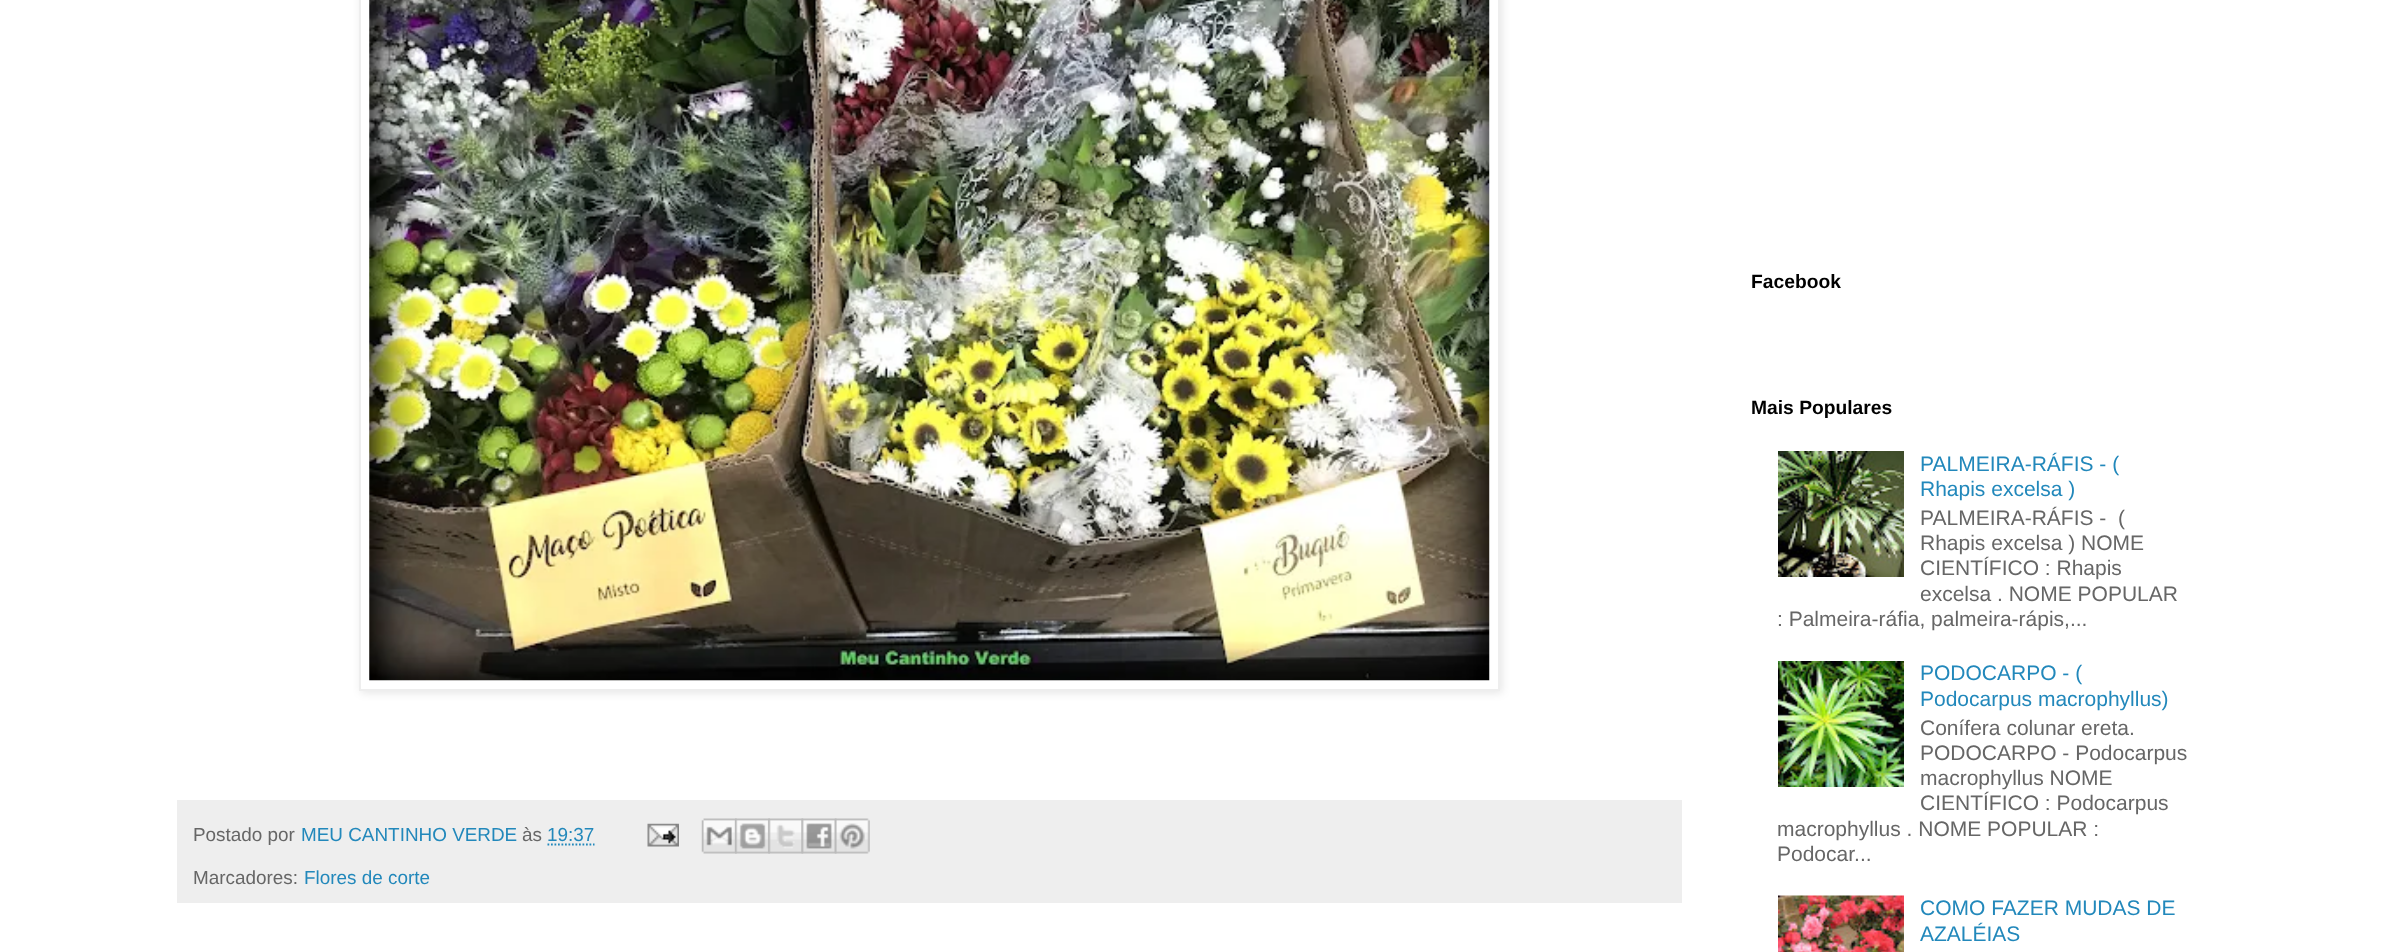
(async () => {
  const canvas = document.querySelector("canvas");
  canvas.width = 2398;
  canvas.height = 952;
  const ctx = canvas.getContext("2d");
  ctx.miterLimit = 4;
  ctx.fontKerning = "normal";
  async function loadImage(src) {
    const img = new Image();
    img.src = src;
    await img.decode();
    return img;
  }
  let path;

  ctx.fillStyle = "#ffffff";
  ctx.fillRect(0, 0, 2398, 952);
  ctx.fillStyle = "rgba(0, 0, 0, 0.1)";
  ctx.filter = "blur(4.5px)";
  ctx.beginPath();
  ctx.rect(361, -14, 1141, 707);
  ctx.fill();
  ctx.filter = "none";
  ctx.fillStyle = "#ffffff";
  ctx.beginPath();
  ctx.rect(360, -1, 1139, 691);
  ctx.fill();
  ctx.strokeStyle = "#eeeeee";
  ctx.lineWidth = 2;
  ctx.stroke();
  ctx.drawImage(await loadImage("img/1.png"), 369, 0, 1121, 681);
  ctx.fillStyle = "#eeeeee";
  ctx.fillRect(177, 800, 1505, 103);
  path = new Path2D("M547.5 844.5H594.5");
  ctx.strokeStyle = "#2288bb";
  ctx.lineWidth = 1.8;
  ctx.setLineDash([1.75, 1.75]);
  ctx.stroke(path);
  ctx.drawImage(await loadImage("img/2.png"), 647, 823, 32, 24);
  ctx.drawImage(await loadImage("img/3.png"), 701, 818, 36, 36);
  ctx.drawImage(await loadImage("img/4.png"), 735, 818, 35, 36);
  ctx.drawImage(await loadImage("img/5.png"), 768, 818, 36, 36);
  ctx.drawImage(await loadImage("img/6.png"), 801, 818, 36, 36);
  ctx.drawImage(await loadImage("img/7.png"), 834, 818, 36, 36);
  ctx.drawImage(await loadImage("img/8.png"), 1778, 451, 126, 126);
  ctx.drawImage(await loadImage("img/9.png"), 1778, 661, 126, 126);
  ctx.drawImage(await loadImage("img/10.png"), 1778, 895, 126, 57);
  ctx.font = "18.9px Liberation Sans";
  ctx.fillStyle = "#666666";
  ctx.fillText("Postado por", 193, 841);
  ctx.fillStyle = "#2288bb";
  ctx.fillText("MEU CANTINHO VERDE", 301, 841);
  ctx.fillStyle = "#666666";
  ctx.fillText("às", 522, 841);
  ctx.fillStyle = "#2288bb";
  ctx.fillText("19:37", 547, 841);
  ctx.fillStyle = "#666666";
  ctx.fillText("Marcadores:", 193, 884);
  ctx.fillStyle = "#2288bb";
  ctx.fillText("Flores de corte", 304, 884);
  ctx.font = "bold 19.25px Liberation Sans";
  ctx.fillStyle = "#000000";
  ctx.fillText("Facebook", 1751, 288);
  ctx.fillText("Mais Populares", 1751, 414);
  ctx.font = "21px Liberation Sans";
  ctx.fillStyle = "#2288bb";
  ctx.fillText("PALMEIRA-RÁFIS - (", 1920, 471);
  ctx.fillText("Rhapis excelsa )", 1920, 496);
  ctx.fillStyle = "#666666";
  for (const [text, x, y] of [
    ["PALMEIRA-RÁFIS -  (", 1920, 525],
    ["Rhapis excelsa ) NOME", 1920, 550],
    ["CIENTÍFICO : Rhapis", 1920, 575],
    ["excelsa . NOME POPULAR", 1920, 601],
    [": Palmeira-ráfia, palmeira-rápis,...", 1777, 626],
  ]) {
    ctx.fillText(text, x, y);
  }
  ctx.fillStyle = "#2288bb";
  ctx.fillText("PODOCARPO - (", 1920, 680);
  ctx.fillText("Podocarpus macrophyllus)", 1920, 706);
  ctx.fillStyle = "#666666";
  for (const [text, x, y] of [
    ["Conífera colunar ereta.", 1920, 735],
    ["PODOCARPO - Podocarpus", 1920, 760],
    ["macrophyllus NOME", 1920, 785],
    ["CIENTÍFICO : Podocarpus", 1920, 810],
    ["macrophyllus . NOME POPULAR :", 1777, 836],
    ["Podocar...", 1777, 861],
  ]) {
    ctx.fillText(text, x, y);
  }
  ctx.fillStyle = "#2288bb";
  ctx.fillText("COMO FAZER MUDAS DE", 1920, 915);
  ctx.fillText("AZALÉIAS", 1920, 941);
})();
